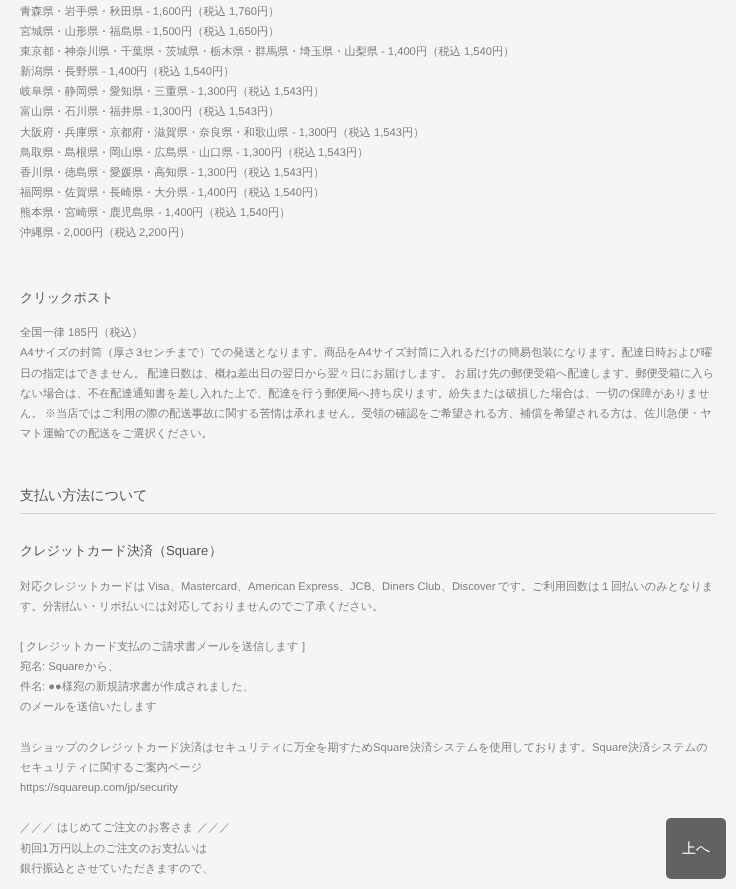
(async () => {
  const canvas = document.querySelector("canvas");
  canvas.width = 736;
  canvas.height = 889;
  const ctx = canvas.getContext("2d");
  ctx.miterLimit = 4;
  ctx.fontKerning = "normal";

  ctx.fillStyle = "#f5f5f5";
  ctx.fillRect(0, 0, 736, 889);
  ctx.fillStyle = "#d3d3d3";
  ctx.fillRect(20, 513, 696, 1);
  ctx.fillStyle = "#626262";
  ctx.beginPath();
  ctx.roundRect(666, 818, 60, 61, 5);
  ctx.fill();
  ctx.font = "500 11.2px WenQuanYi Zen Hei";
  ctx.fillStyle = "#808080";
  ctx.fillText("青森県・岩手県・秋田県", 20, 15);
  ctx.font = "11.2px Liberation Sans";
  ctx.fillText("- 1,600", 146, 15);
  ctx.font = "500 11.2px WenQuanYi Zen Hei";
  ctx.fillText("円（税込", 181, 15);
  ctx.font = "11.2px Liberation Sans";
  ctx.fillText("1,760", 229, 15);
  ctx.font = "500 11.2px WenQuanYi Zen Hei";
  ctx.fillText("円）", 257, 15);
  ctx.fillText("宮城県・山形県・福島県", 20, 35);
  ctx.font = "11.2px Liberation Sans";
  ctx.fillText("- 1,500", 146, 35);
  ctx.font = "500 11.2px WenQuanYi Zen Hei";
  ctx.fillText("円（税込", 181, 35);
  ctx.font = "11.2px Liberation Sans";
  ctx.fillText("1,650", 229, 35);
  ctx.font = "500 11.2px WenQuanYi Zen Hei";
  ctx.fillText("円）", 257, 35);
  ctx.fillText("東京都・神奈川県・千葉県・茨城県・栃木県・群馬県・埼玉県・山梨県", 20, 55);
  ctx.font = "11.2px Liberation Sans";
  ctx.fillText("- 1,400", 381, 55);
  ctx.font = "500 11.2px WenQuanYi Zen Hei";
  ctx.fillText("円（税込", 416, 55);
  ctx.font = "11.2px Liberation Sans";
  ctx.fillText("1,540", 464, 55);
  ctx.font = "500 11.2px WenQuanYi Zen Hei";
  ctx.fillText("円）", 492, 55);
  ctx.fillText("新潟県・長野県", 20, 75);
  ctx.font = "11.2px Liberation Sans";
  ctx.fillText("- 1,400", 102, 75);
  ctx.font = "500 11.2px WenQuanYi Zen Hei";
  ctx.fillText("円（税込", 136, 75);
  ctx.font = "11.2px Liberation Sans";
  ctx.fillText("1,540", 184, 75);
  ctx.font = "500 11.2px WenQuanYi Zen Hei";
  ctx.fillText("円）", 212, 75);
  ctx.fillText("岐阜県・静岡県・愛知県・三重県", 20, 95);
  ctx.font = "11.2px Liberation Sans";
  ctx.fillText("- 1,300", 191, 95);
  ctx.font = "500 11.2px WenQuanYi Zen Hei";
  ctx.fillText("円（税込", 226, 95);
  ctx.font = "11.2px Liberation Sans";
  ctx.fillText("1,543", 274, 95);
  ctx.font = "500 11.2px WenQuanYi Zen Hei";
  ctx.fillText("円）", 302, 95);
  ctx.fillText("富山県・石川県・福井県", 20, 115);
  ctx.font = "11.2px Liberation Sans";
  ctx.fillText("- 1,300", 146, 115);
  ctx.font = "500 11.2px WenQuanYi Zen Hei";
  ctx.fillText("円（税込", 181, 115);
  ctx.font = "11.2px Liberation Sans";
  ctx.fillText("1,543", 229, 115);
  ctx.font = "500 11.2px WenQuanYi Zen Hei";
  ctx.fillText("円）", 257, 115);
  ctx.fillText("大阪府・兵庫県・京都府・滋賀県・奈良県・和歌山県", 20, 136);
  ctx.font = "11.2px Liberation Sans";
  ctx.fillText("- 1,300", 292, 136);
  ctx.font = "500 11.2px WenQuanYi Zen Hei";
  ctx.fillText("円（税込", 326, 136);
  ctx.font = "11.2px Liberation Sans";
  ctx.fillText("1,543", 374, 136);
  ctx.font = "500 11.2px WenQuanYi Zen Hei";
  ctx.fillText("円）", 402, 136);
  ctx.fillText("鳥取県・島根県・岡山県・広島県・山口県", 20, 156);
  ctx.font = "11.2px Liberation Sans";
  ctx.fillText("- 1,300", 236, 156);
  ctx.font = "500 11.2px WenQuanYi Zen Hei";
  ctx.fillText("円（税込", 271, 156);
  ctx.font = "11.2px Liberation Sans";
  ctx.fillText("1,543", 318, 156);
  ctx.font = "500 11.2px WenQuanYi Zen Hei";
  ctx.fillText("円）", 346, 156);
  ctx.fillText("香川県・徳島県・愛媛県・高知県", 20, 176);
  ctx.font = "11.2px Liberation Sans";
  ctx.fillText("- 1,300", 191, 176);
  ctx.font = "500 11.2px WenQuanYi Zen Hei";
  ctx.fillText("円（税込", 226, 176);
  ctx.font = "11.2px Liberation Sans";
  ctx.fillText("1,543", 274, 176);
  ctx.font = "500 11.2px WenQuanYi Zen Hei";
  ctx.fillText("円）", 302, 176);
  ctx.fillText("福岡県・佐賀県・長崎県・大分県", 20, 196);
  ctx.font = "11.2px Liberation Sans";
  ctx.fillText("- 1,400", 191, 196);
  ctx.font = "500 11.2px WenQuanYi Zen Hei";
  ctx.fillText("円（税込", 226, 196);
  ctx.font = "11.2px Liberation Sans";
  ctx.fillText("1,540", 274, 196);
  ctx.font = "500 11.2px WenQuanYi Zen Hei";
  ctx.fillText("円）", 302, 196);
  ctx.fillText("熊本県・宮崎県・鹿児島県", 20, 216);
  ctx.font = "11.2px Liberation Sans";
  ctx.fillText("- 1,400", 158, 216);
  ctx.font = "500 11.2px WenQuanYi Zen Hei";
  ctx.fillText("円（税込", 192, 216);
  ctx.font = "11.2px Liberation Sans";
  ctx.fillText("1,540", 240, 216);
  ctx.font = "500 11.2px WenQuanYi Zen Hei";
  ctx.fillText("円）", 268, 216);
  ctx.fillText("沖縄県", 20, 236);
  ctx.font = "11.2px Liberation Sans";
  ctx.fillText("- 2,000", 57, 236);
  ctx.font = "500 11.2px WenQuanYi Zen Hei";
  ctx.fillText("円（税込", 92, 236);
  ctx.font = "11.2px Liberation Sans";
  ctx.fillText("2,200", 139, 236);
  ctx.font = "500 11.2px WenQuanYi Zen Hei";
  ctx.fillText("円）", 168, 236);
  ctx.font = "500 13.1px WenQuanYi Zen Hei";
  ctx.fillStyle = "#555555";
  ctx.fillText("クリックポスト", 20, 302);
  ctx.font = "500 11.2px WenQuanYi Zen Hei";
  ctx.fillStyle = "#808080";
  ctx.fillText("全国一律", 20, 336);
  ctx.font = "11.2px Liberation Sans";
  ctx.fillText("185", 68, 336);
  ctx.font = "500 11.2px WenQuanYi Zen Hei";
  ctx.fillText("円（税込）", 87, 336);
  ctx.font = "11.2px Liberation Sans";
  ctx.fillText("A4", 20, 356);
  ctx.font = "500 11.2px WenQuanYi Zen Hei";
  ctx.fillText("サイズの封筒（厚さ", 34, 356);
  ctx.font = "11.2px Liberation Sans";
  ctx.fillText("3", 136, 356);
  ctx.font = "500 11.2px WenQuanYi Zen Hei";
  ctx.fillText("センチまで）での発送となります。商品を", 142, 356);
  ctx.font = "11.2px Liberation Sans";
  ctx.fillText("A4", 358, 356);
  ctx.font = "500 11.2px WenQuanYi Zen Hei";
  ctx.fillText("サイズ封筒に入れるだけの簡易包装になります。配達日時および曜", 372, 356);
  ctx.wordSpacing = "-1px";
  ctx.fillText("日の指定はできません。 配達日数は、概ね差出日の翌日から翌々日にお届けします。 お届け先の郵便受箱へ配達します。郵便受箱に入ら", 20, 377);
  ctx.wordSpacing = "0px";
  ctx.fillText("ない場合は、不在配達通知書を差し入れた上で、配達を行う郵便局へ持ち戻ります。紛失または破損した場合は、一切の保障がありませ", 20, 397);
  ctx.wordSpacing = "-1px";
  ctx.fillText("ん。 ※当店ではご利用の際の配送事故に関する苦情は承れません。受領の確認をご希望される方、補償を希望される方は、佐川急便・ヤ", 20, 417);
  ctx.wordSpacing = "0px";
  ctx.fillText("マト運輸での配送をご選択ください。", 20, 437);
  ctx.font = "500 14px WenQuanYi Zen Hei";
  ctx.fillStyle = "#555555";
  ctx.fillText("支払い方法について", 20, 500);
  ctx.font = "500 13.1px WenQuanYi Zen Hei";
  ctx.fillText("クレジットカード決済（", 20, 555);
  ctx.font = "13.1px Liberation Sans";
  ctx.fillText("Square", 166, 555);
  ctx.font = "500 13.1px WenQuanYi Zen Hei";
  ctx.fillText("）", 209, 555);
  ctx.font = "500 11.2px WenQuanYi Zen Hei";
  ctx.fillStyle = "#808080";
  ctx.fillText("対応クレジットカードは", 20, 590);
  ctx.font = "11.2px Liberation Sans";
  ctx.fillText("Visa", 148, 590);
  ctx.font = "500 11.2px WenQuanYi Zen Hei";
  ctx.fillText("、", 170, 590);
  ctx.font = "11.2px Liberation Sans";
  ctx.fillText("Mastercard", 181, 590);
  ctx.font = "500 11.2px WenQuanYi Zen Hei";
  ctx.fillText("、", 237, 590);
  ctx.font = "11.2px Liberation Sans";
  ctx.fillText("American Express", 248, 590);
  ctx.font = "500 11.2px WenQuanYi Zen Hei";
  ctx.fillText("、", 339, 590);
  ctx.font = "11.2px Liberation Sans";
  ctx.fillText("JCB", 350, 590);
  ctx.font = "500 11.2px WenQuanYi Zen Hei";
  ctx.fillText("、", 371, 590);
  ctx.font = "11.2px Liberation Sans";
  ctx.fillText("Diners Club", 382, 590);
  ctx.font = "500 11.2px WenQuanYi Zen Hei";
  ctx.fillText("、", 441, 590);
  ctx.font = "11.2px Liberation Sans";
  ctx.fillText("Discover", 452, 590);
  ctx.font = "500 11.2px WenQuanYi Zen Hei";
  ctx.fillText("です。ご利用回数は１回払いのみとなりま", 498, 590);
  ctx.fillText("す。分割払い・リボ払いには対応しておりませんのでご了承ください。", 20, 610);
  ctx.font = "11.2px Liberation Sans";
  ctx.fillText("[", 20, 650);
  ctx.font = "500 11.2px WenQuanYi Zen Hei";
  ctx.fillText("クレジットカード支払のご請求書メールを送信します", 26, 650);
  ctx.font = "11.2px Liberation Sans";
  ctx.fillText("]", 302, 650);
  ctx.font = "500 11.2px WenQuanYi Zen Hei";
  ctx.fillText("宛名", 20, 670);
  ctx.font = "11.2px Liberation Sans";
  ctx.fillText(": Square", 42, 670);
  ctx.font = "500 11.2px WenQuanYi Zen Hei";
  ctx.fillText("から、", 85, 670);
  ctx.fillText("件名", 20, 690);
  ctx.font = "11.2px Liberation Sans";
  ctx.fillText(": ●●", 42, 690);
  ctx.font = "500 11.2px WenQuanYi Zen Hei";
  for (const [text, x, y] of [
    ["様宛の新規請求書が作成されました、", 62, 690],
    ["のメールを送信いたします", 20, 710],
    ["当ショップのクレジットカード決済はセキュリティに万全を期すため", 20, 751],
  ]) {
    ctx.fillText(text, x, y);
  }
  ctx.font = "11.2px Liberation Sans";
  ctx.fillText("Square", 373, 751);
  ctx.font = "500 11.2px WenQuanYi Zen Hei";
  ctx.fillText("決済システムを使用しております。", 410, 751);
  ctx.font = "11.2px Liberation Sans";
  ctx.fillText("Square", 592, 751);
  ctx.font = "500 11.2px WenQuanYi Zen Hei";
  ctx.fillText("決済システムの", 628, 751);
  ctx.fillText("セキュリティに関するご案内ページ", 20, 771);
  ctx.font = "11.2px Liberation Sans";
  ctx.fillText("https://squareup.com/jp/security", 20, 791);
  ctx.font = "500 11.2px WenQuanYi Zen Hei";
  ctx.fillText("／／／ はじめてご注文のお客さま ／／／", 20, 831);
  ctx.fillText("初回", 20, 852);
  ctx.font = "11.2px Liberation Sans";
  ctx.fillText("1", 42, 852);
  ctx.font = "500 11.2px WenQuanYi Zen Hei";
  ctx.fillText("万円以上のご注文のお支払いは", 49, 852);
  ctx.fillText("銀行振込とさせていただきますので、", 20, 872);
  ctx.font = "500 14px WenQuanYi Zen Hei";
  ctx.fillStyle = "#ffffff";
  ctx.fillText("上へ", 682, 853);
})();
